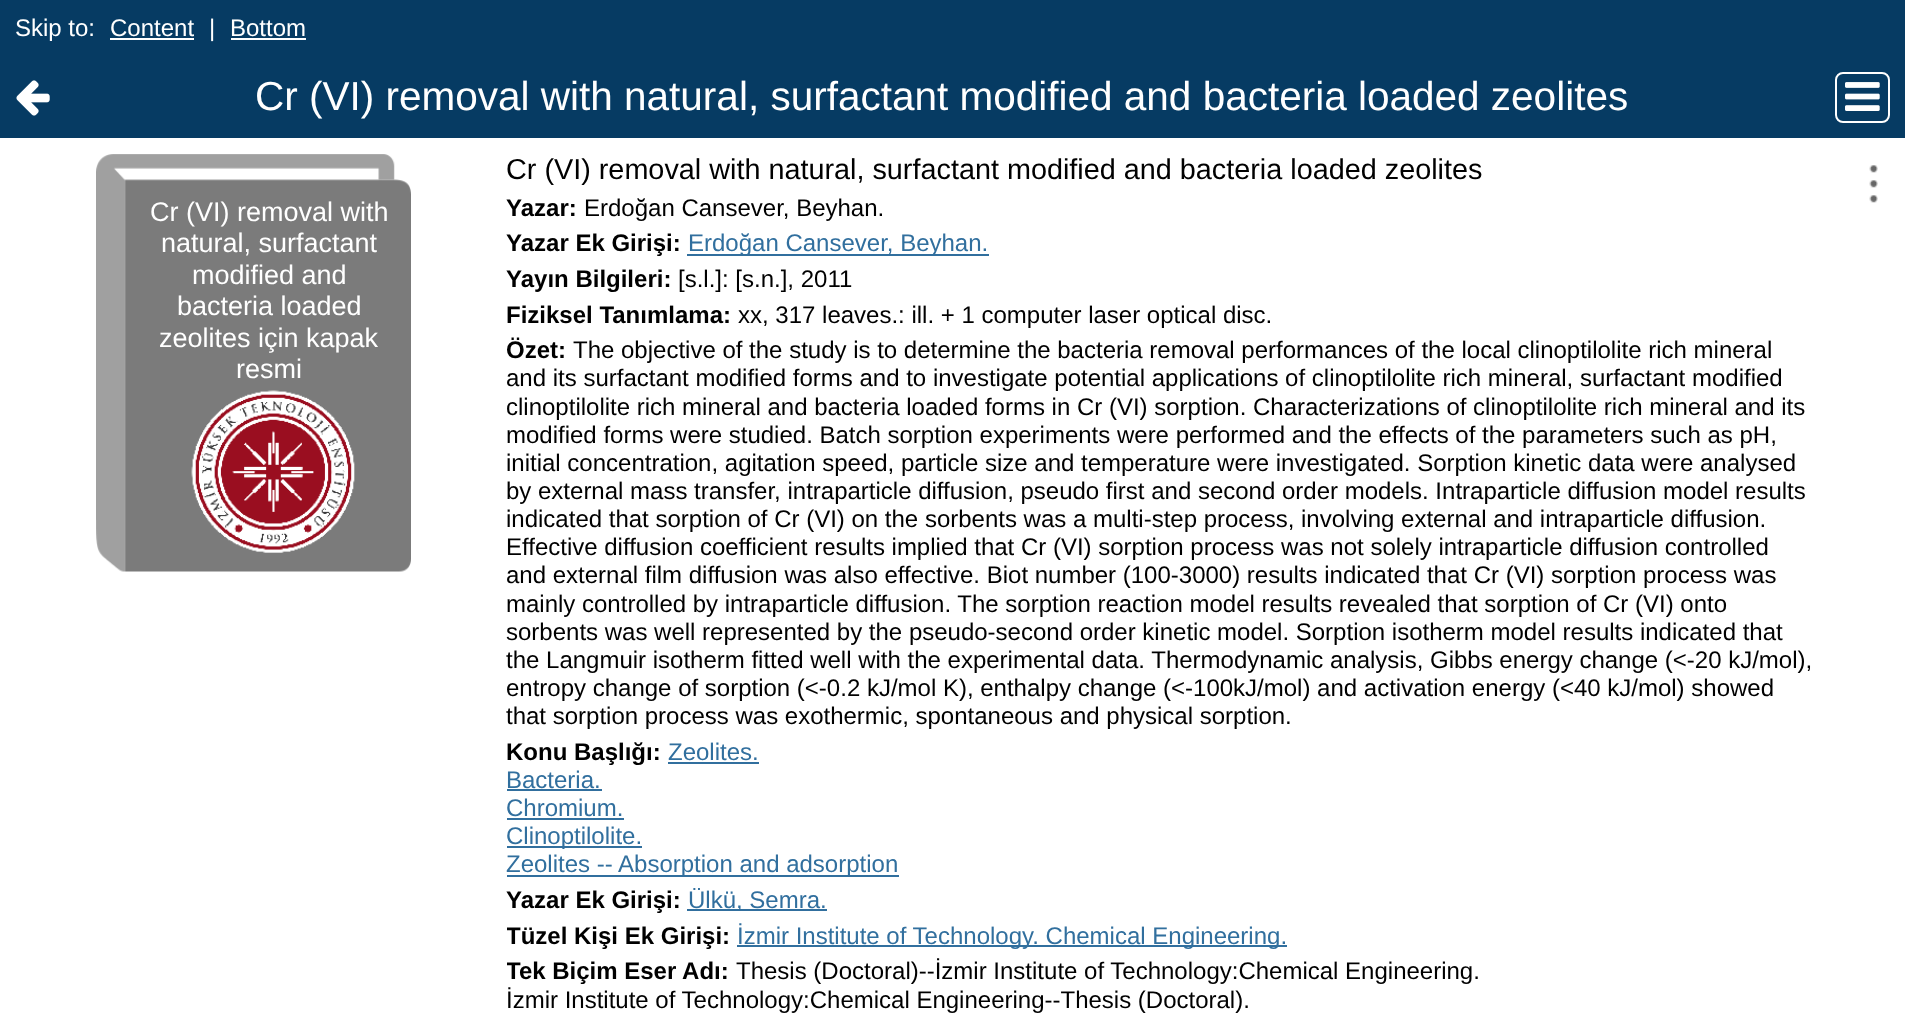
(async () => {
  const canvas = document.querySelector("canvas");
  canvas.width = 1905;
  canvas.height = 1017;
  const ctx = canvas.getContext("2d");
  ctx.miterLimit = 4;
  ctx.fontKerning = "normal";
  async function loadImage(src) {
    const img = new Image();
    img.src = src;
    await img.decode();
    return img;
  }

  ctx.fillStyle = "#063b63";
  ctx.fillRect(0, 0, 1905, 1017);
  ctx.fillStyle = "#ffffff";
  ctx.fillRect(110, 38, 84, 2);
  ctx.fillRect(231, 38, 75, 2);
  ctx.drawImage(await loadImage("img/1.png"), 16, 80, 34, 36);
  ctx.beginPath();
  ctx.roundRect(1836, 73, 53, 49, 7);
  ctx.strokeStyle = "#ffffff";
  ctx.lineWidth = 2;
  ctx.stroke();
  ctx.drawImage(await loadImage("img/2.png"), 1845, 82, 35, 29);
  ctx.fillRect(0, 138, 1905, 879);
  ctx.drawImage(await loadImage("img/3.png"), 96, 154, 315, 418);
  for (const [x, y, w, h, color] of [
    [687, 254, 302, 2, "#316f9e"],
    [668, 762, 91, 2, "#316f9e"],
    [507, 789, 95, 2, "#316f9e"],
    [507, 818, 117, 2, "#316f9e"],
    [507, 846, 135, 2, "#316f9e"],
    [507, 875, 392, 2, "#316f9e"],
    [687, 909, 140, 2, "#316f9e"],
    [737, 945, 550, 2, "#316f9e"],
  ]) {
    ctx.fillStyle = color;
    ctx.fillRect(x, y, w, h);
  }
  ctx.drawImage(await loadImage("img/4.png"), 1869, 165, 9, 38);
  ctx.font = "24px Liberation Sans";
  ctx.fillStyle = "#ffffff";
  for (const [text, x, y] of [
    ["Skip to:", 15, 36],
    ["Content", 110, 36],
    ["|", 209, 36],
    ["Bottom", 230, 36],
  ]) {
    ctx.fillText(text, x, y);
  }
  ctx.font = "40.5px Liberation Sans";
  ctx.fillText("Cr (VI) removal with natural, surfactant modified and bacteria loaded zeolites", 255, 110);
  ctx.font = "27px Liberation Sans";
  for (const [text, x, y] of [
    ["Cr (VI) removal with", 150, 221],
    ["natural, surfactant", 161, 252],
    ["modified and", 192, 284],
    ["bacteria loaded", 177, 315],
    ["zeolites için kapak", 159, 347],
    ["resmi", 236, 378],
  ]) {
    ctx.fillText(text, x, y);
  }
  ctx.font = "28.8px Liberation Sans";
  ctx.fillStyle = "#000000";
  ctx.fillText("Cr (VI) removal with natural, surfactant modified and bacteria loaded zeolites", 506, 179);
  ctx.font = "bold 24px Liberation Sans";
  ctx.fillText("Yazar:", 506, 216);
  ctx.font = "24px Liberation Sans";
  ctx.fillText("Erdoğan Cansever, Beyhan.", 584, 216);
  ctx.font = "bold 24px Liberation Sans";
  ctx.fillText("Yazar Ek Girişi:", 506, 251);
  ctx.font = "24px Liberation Sans";
  ctx.fillStyle = "#316f9e";
  ctx.fillText("Erdoğan Cansever, Beyhan.", 688, 251);
  ctx.font = "bold 24px Liberation Sans";
  ctx.fillStyle = "#000000";
  ctx.fillText("Yayın Bilgileri:", 506, 287);
  ctx.font = "24px Liberation Sans";
  ctx.fillText("[s.l.]: [s.n.], 2011", 678, 287);
  ctx.font = "bold 24px Liberation Sans";
  ctx.fillText("Fiziksel Tanımlama:", 506, 323);
  ctx.font = "24px Liberation Sans";
  ctx.fillText("xx, 317 leaves.: ill. + 1 computer laser optical disc.", 738, 323);
  ctx.font = "bold 24px Liberation Sans";
  ctx.fillText("Özet:", 506, 358);
  ctx.font = "24px Liberation Sans";
  for (const [text, x, y] of [
    ["The objective of the study is to determine the bacteria removal performances of the local clinoptilolite rich mineral", 573, 358],
    ["and its surfactant modified forms and to investigate potential applications of clinoptilolite rich mineral, surfactant modified", 506, 386],
    ["clinoptilolite rich mineral and bacteria loaded forms in Cr (VI) sorption. Characterizations of clinoptilolite rich mineral and its", 506, 415],
    ["modified forms were studied. Batch sorption experiments were performed and the effects of the parameters such as pH,", 506, 443],
    ["initial concentration, agitation speed, particle size and temperature were investigated. Sorption kinetic data were analysed", 506, 471],
    ["by external mass transfer, intraparticle diffusion, pseudo first and second order models. Intraparticle diffusion model results", 506, 499],
    ["indicated that sorption of Cr (VI) on the sorbents was a multi-step process, involving external and intraparticle diffusion.", 506, 527],
    ["Effective diffusion coefficient results implied that Cr (VI) sorption process was not solely intraparticle diffusion controlled", 506, 555],
    ["and external film diffusion was also effective. Biot number (100-3000) results indicated that Cr (VI) sorption process was", 506, 583],
    ["mainly controlled by intraparticle diffusion. The sorption reaction model results revealed that sorption of Cr (VI) onto", 506, 612],
    ["sorbents was well represented by the pseudo-second order kinetic model. Sorption isotherm model results indicated that", 506, 640],
    ["the Langmuir isotherm fitted well with the experimental data. Thermodynamic analysis, Gibbs energy change (<-20 kJ/mol),", 506, 668],
    ["entropy change of sorption (<-0.2 kJ/mol K), enthalpy change (<-100kJ/mol) and activation energy (<40 kJ/mol) showed", 506, 696],
    ["that sorption process was exothermic, spontaneous and physical sorption.", 506, 724],
  ]) {
    ctx.fillText(text, x, y);
  }
  ctx.font = "bold 24px Liberation Sans";
  ctx.fillText("Konu Başlığı:", 506, 760);
  ctx.font = "24px Liberation Sans";
  ctx.fillStyle = "#316f9e";
  for (const [text, x, y] of [
    ["Zeolites.", 668, 760],
    ["Bacteria.", 506, 788],
    ["Chromium.", 506, 816],
    ["Clinoptilolite.", 506, 844],
    ["Zeolites -- Absorption and adsorption", 506, 872],
  ]) {
    ctx.fillText(text, x, y);
  }
  ctx.font = "bold 24px Liberation Sans";
  ctx.fillStyle = "#000000";
  ctx.fillText("Yazar Ek Girişi:", 506, 908);
  ctx.font = "24px Liberation Sans";
  ctx.fillStyle = "#316f9e";
  ctx.fillText("Ülkü, Semra.", 688, 908);
  ctx.save();
  ctx.beginPath();
  ctx.rect(507, 153, 1308, 864);
  ctx.clip();
  ctx.font = "bold 24px Liberation Sans";
  ctx.fillStyle = "#000000";
  ctx.fillText("Tüzel Kişi Ek Girişi:", 506, 944);
  ctx.restore();
  ctx.fillText("İzmir Institute of Technology. Chemical Engineering.", 737, 944);
  ctx.save();
  ctx.beginPath();
  ctx.rect(507, 153, 1308, 864);
  ctx.clip();
  ctx.font = "bold 24px Liberation Sans";
  ctx.fillStyle = "#000000";
  ctx.fillText("Tek Biçim Eser Adı:", 506, 979);
  ctx.restore();
  ctx.fillStyle = "#000000";
  ctx.fillText("Thesis (Doctoral)--İzmir Institute of Technology:Chemical Engineering.", 736, 979);
  ctx.fillText("İzmir Institute of Technology:Chemical Engineering--Thesis (Doctoral).", 506, 1008);
})();
